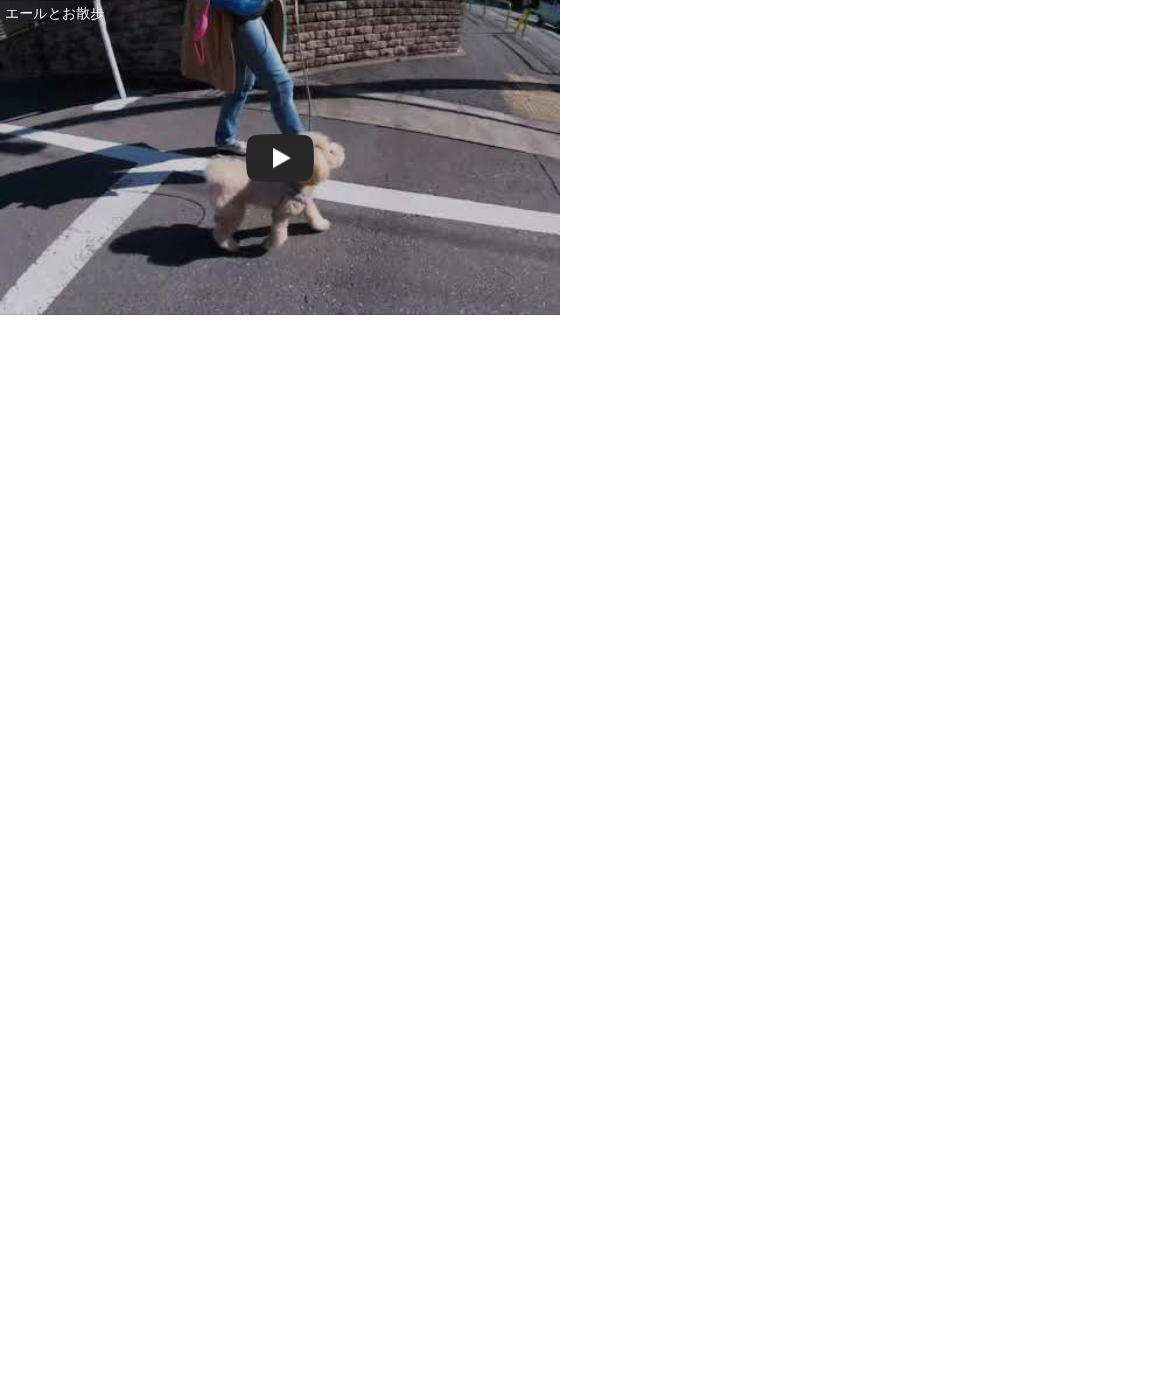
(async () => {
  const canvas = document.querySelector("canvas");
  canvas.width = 1154;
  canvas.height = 1378;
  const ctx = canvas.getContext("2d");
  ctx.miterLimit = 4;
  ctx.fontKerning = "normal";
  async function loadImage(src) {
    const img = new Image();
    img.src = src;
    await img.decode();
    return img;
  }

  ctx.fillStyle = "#ffffff";
  ctx.fillRect(0, 0, 1154, 1378);
  ctx.drawImage(await loadImage("img/1.png"), 0, 0, 560, 315);
  ctx.drawImage(await loadImage("img/2.png"), 246, 134, 68, 48);
  ctx.font = "500 14px WenQuanYi Zen Hei";
  ctx.fillText("エールとお散歩", 5, 18);
})();
